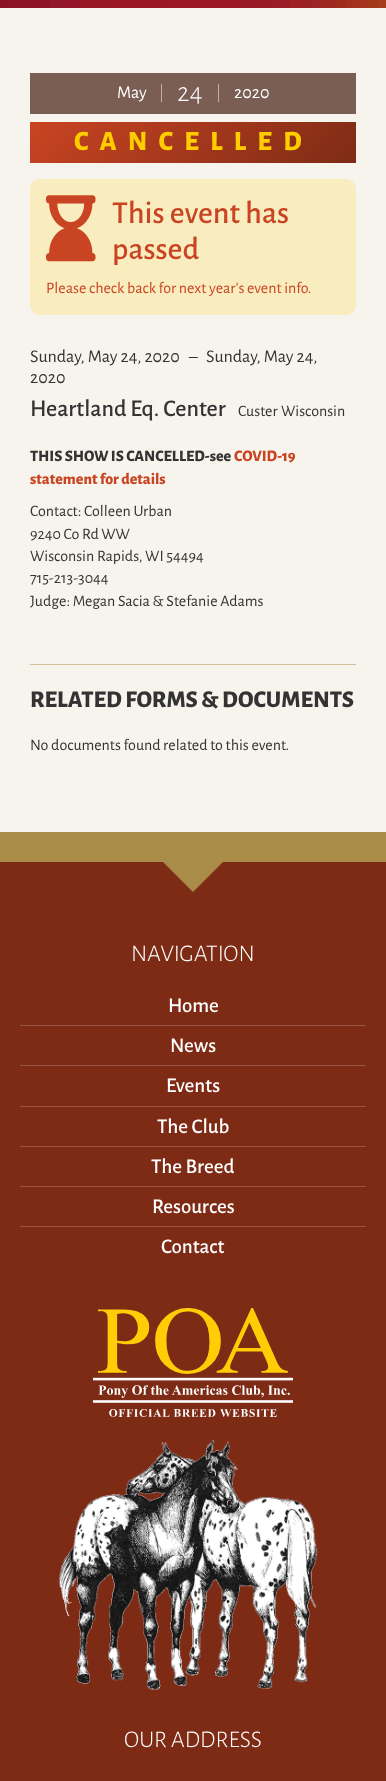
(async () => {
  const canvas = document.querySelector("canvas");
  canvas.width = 386;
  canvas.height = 1781;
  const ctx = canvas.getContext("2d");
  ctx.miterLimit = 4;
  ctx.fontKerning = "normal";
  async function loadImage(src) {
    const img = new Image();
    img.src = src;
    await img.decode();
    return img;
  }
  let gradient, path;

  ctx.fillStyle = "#ffffff";
  ctx.fillRect(0, 0, 386, 1781);
  ctx.drawImage(await loadImage("img/1.png"), 0, 0, 386, 8);
  for (const [x, y, w, h, color] of [
    [0, 8, 386, 824, "#f7f4ed"],
    [30, 73, 326, 41, "#7a5e54"],
    [161, 84, 1, 18, "#bdafaa"],
    [218, 84, 1, 18, "#bdafaa"],
  ]) {
    ctx.fillStyle = color;
    ctx.fillRect(x, y, w, h);
  }
  gradient = ctx.createLinearGradient(285, 234, 101, 51);
  gradient.addColorStop(0, "#7e2b16");
  gradient.addColorStop(1, "#c94422");
  ctx.fillStyle = gradient;
  ctx.fillRect(30, 122, 326, 41);
  ctx.fillStyle = "#f9ecbe";
  ctx.beginPath();
  ctx.roundRect(30, 179, 326, 136, 10);
  ctx.fill();
  ctx.drawImage(await loadImage("img/2.png"), 46, 195, 50, 67);
  for (const [x, y, w, h, color] of [
    [30, 664, 326, 1, "#d0c09b"],
    [0, 862, 386, 919, "#7e2b16"],
    [0, 832, 386, 30, "#a88c48"],
  ]) {
    ctx.fillStyle = color;
    ctx.fillRect(x, y, w, h);
  }
  path = new Path2D("M163 862H223L193 892Z");
  ctx.fill(path);
  for (const [x, y, w, h, color] of [
    [20, 1025, 346, 1, "#985545"],
    [20, 1065, 346, 1, "#985545"],
    [20, 1106, 346, 1, "#985545"],
    [20, 1146, 346, 1, "#985545"],
    [20, 1186, 346, 1, "#985545"],
    [20, 1226, 346, 1, "#985545"],
  ]) {
    ctx.fillStyle = color;
    ctx.fillRect(x, y, w, h);
  }
  ctx.drawImage(await loadImage("img/3.png"), 93, 1308, 200, 109);
  ctx.drawImage(await loadImage("img/4.png"), 59, 1439, 259, 251);
  ctx.font = "18px Alegreya Sans";
  ctx.fillStyle = "#ffffff";
  ctx.fillText("May", 117, 98);
  ctx.font = "300 28px Alegreya Sans";
  ctx.fillText("24", 177, 101);
  ctx.font = "18px Alegreya Sans";
  ctx.fillText("2020", 234, 98);
  ctx.letterSpacing = "11.25px";
  ctx.font = "800 28px Alegreya Sans";
  ctx.fillStyle = "#ffcc00";
  ctx.fillText("CANCELLED", 74, 150);
  ctx.letterSpacing = "0px";
  ctx.font = "500 32px Alegreya Sans";
  ctx.fillStyle = "#c94422";
  ctx.fillText("This event has", 112, 223);
  ctx.fillText("passed", 112, 259);
  ctx.font = "16px Alegreya Sans";
  ctx.fillText("Please check back for next year's event info.", 46, 293);
  ctx.font = "18px Alegreya Sans";
  ctx.fillStyle = "#333333";
  for (const [text, x, y] of [
    ["Sunday, May 24, 2020", 30, 362],
    ["–", 189, 362],
    ["Sunday, May 24,", 206, 362],
    ["2020", 30, 383],
  ]) {
    ctx.fillText(text, x, y);
  }
  ctx.font = "500 24px Alegreya Sans";
  ctx.fillText("Heartland Eq. Center", 30, 416);
  ctx.font = "16px Alegreya Sans";
  ctx.fillText("Custer", 238, 416);
  ctx.fillText("Wisconsin", 281, 416);
  ctx.font = "800 16px Alegreya Sans";
  ctx.fillText("THIS SHOW IS CANCELLED-see", 30, 461);
  ctx.fillStyle = "#c94422";
  ctx.fillText("COVID-19", 234, 461);
  ctx.fillText("statement for details", 30, 484);
  ctx.font = "16px Alegreya Sans";
  ctx.fillStyle = "#333333";
  for (const [text, x, y] of [
    ["Contact: Colleen Urban", 30, 516],
    ["9240 Co Rd WW", 30, 539],
    ["Wisconsin Rapids, WI 54494", 30, 561],
    ["715-213-3044", 30, 583],
    ["Judge: Megan Sacia & Stefanie Adams", 30, 606],
  ]) {
    ctx.fillText(text, x, y);
  }
  ctx.font = "800 24px Alegreya Sans";
  ctx.fillText("RELATED FORMS & DOCUMENTS", 30, 707);
  ctx.font = "16px Alegreya Sans";
  ctx.fillText("No documents found related to this event.", 30, 750);
  ctx.font = "300 24px Alegreya Sans";
  ctx.fillStyle = "#ffffff";
  ctx.fillText("NAVIGATION", 131, 961);
  ctx.font = "500 21px Alegreya Sans";
  for (const [text, x, y] of [
    ["Home", 168, 1012],
    ["News", 170, 1052],
    ["Events", 166, 1092],
    ["The Club", 157, 1133],
    ["The Breed", 151, 1173],
    ["Resources", 152, 1213],
    ["Contact", 161, 1253],
  ]) {
    ctx.fillText(text, x, y);
  }
  ctx.font = "300 24px Alegreya Sans";
  ctx.fillText("OUR ADDRESS", 124, 1747);
})();
